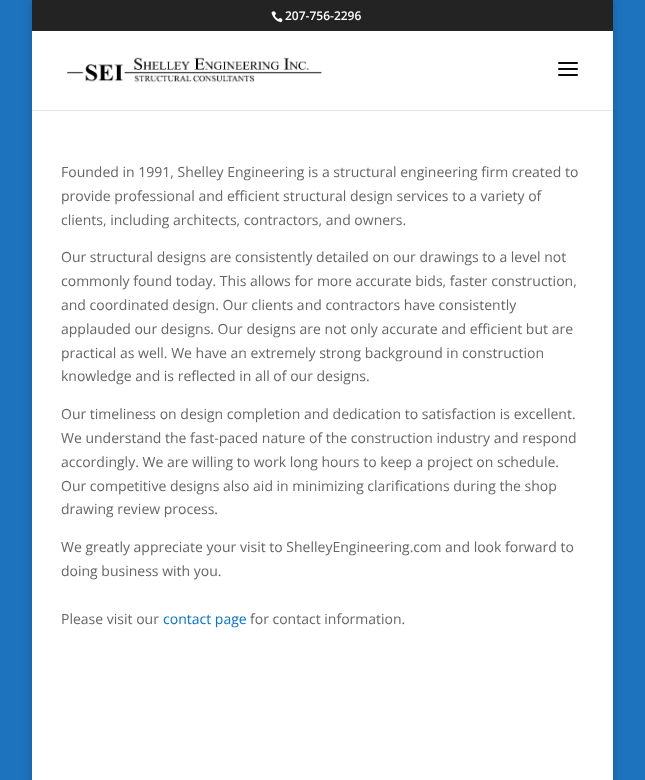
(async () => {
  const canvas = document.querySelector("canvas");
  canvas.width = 645;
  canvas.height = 780;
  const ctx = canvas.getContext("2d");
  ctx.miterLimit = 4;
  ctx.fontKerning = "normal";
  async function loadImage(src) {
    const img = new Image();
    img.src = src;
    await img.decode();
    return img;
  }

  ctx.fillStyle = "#1e73be";
  ctx.fillRect(0, 0, 645, 780);
  ctx.fillStyle = "rgba(0, 0, 0, 0.2)";
  ctx.filter = "blur(5px)";
  ctx.beginPath();
  ctx.rect(32, 0, 581, 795);
  ctx.fill();
  ctx.filter = "none";
  ctx.fillStyle = "#232323";
  ctx.fillRect(32, 0, 581, 31);
  ctx.drawImage(await loadImage("img/1.png"), 271, 11, 12, 12);
  ctx.fillStyle = "#e6e6e6";
  ctx.fillRect(32, 110, 581, 1);
  ctx.fillStyle = "#ffffff";
  ctx.fillRect(32, 31, 581, 79);
  ctx.drawImage(await loadImage("img/2.png"), 67, 57, 256, 26);
  ctx.drawImage(await loadImage("img/3.png"), 558, 62, 20, 14);
  ctx.fillRect(32, 111, 581, 669);
  ctx.font = "600 12px Open Sans";
  ctx.fillText("207-756-2296", 285, 20);
  ctx.font = "14px Open Sans";
  ctx.fillStyle = "#666666";
  for (const [text, x, y] of [
    ["Founded in 1991, Shelley Engineering is a structural engineering firm created to", 61, 177],
    ["provide professional and efficient structural design services to a variety of", 61, 201],
    ["clients, including architects, contractors, and owners.", 61, 225],
    ["Our structural designs are consistently detailed on our drawings to a level not", 61, 262],
    ["commonly found today. This allows for more accurate bids, faster construction,", 61, 286],
    ["and coordinated design. Our clients and contractors have consistently", 61, 310],
    ["applauded our designs. Our designs are not only accurate and efficient but are", 61, 334],
    ["practical as well. We have an extremely strong background in construction", 61, 358],
    ["knowledge and is reflected in all of our designs.", 61, 381],
    ["Our timeliness on design completion and dedication to satisfaction is excellent.", 61, 419],
    ["We understand the fast-paced nature of the construction industry and respond", 61, 443],
    ["accordingly. We are willing to work long hours to keep a project on schedule.", 61, 467],
    ["Our competitive designs also aid in minimizing clarifications during the shop", 61, 491],
    ["drawing review process.", 61, 514],
    ["We greatly appreciate your visit to ShelleyEngineering.com and look forward to", 61, 552],
    ["doing business with you.", 61, 576],
    ["Please visit our", 61, 624],
  ]) {
    ctx.fillText(text, x, y);
  }
  ctx.fillStyle = "#0c71c3";
  ctx.fillText("contact page", 163, 624);
  ctx.fillStyle = "#666666";
  ctx.fillText("for contact information.", 250, 624);
})();
